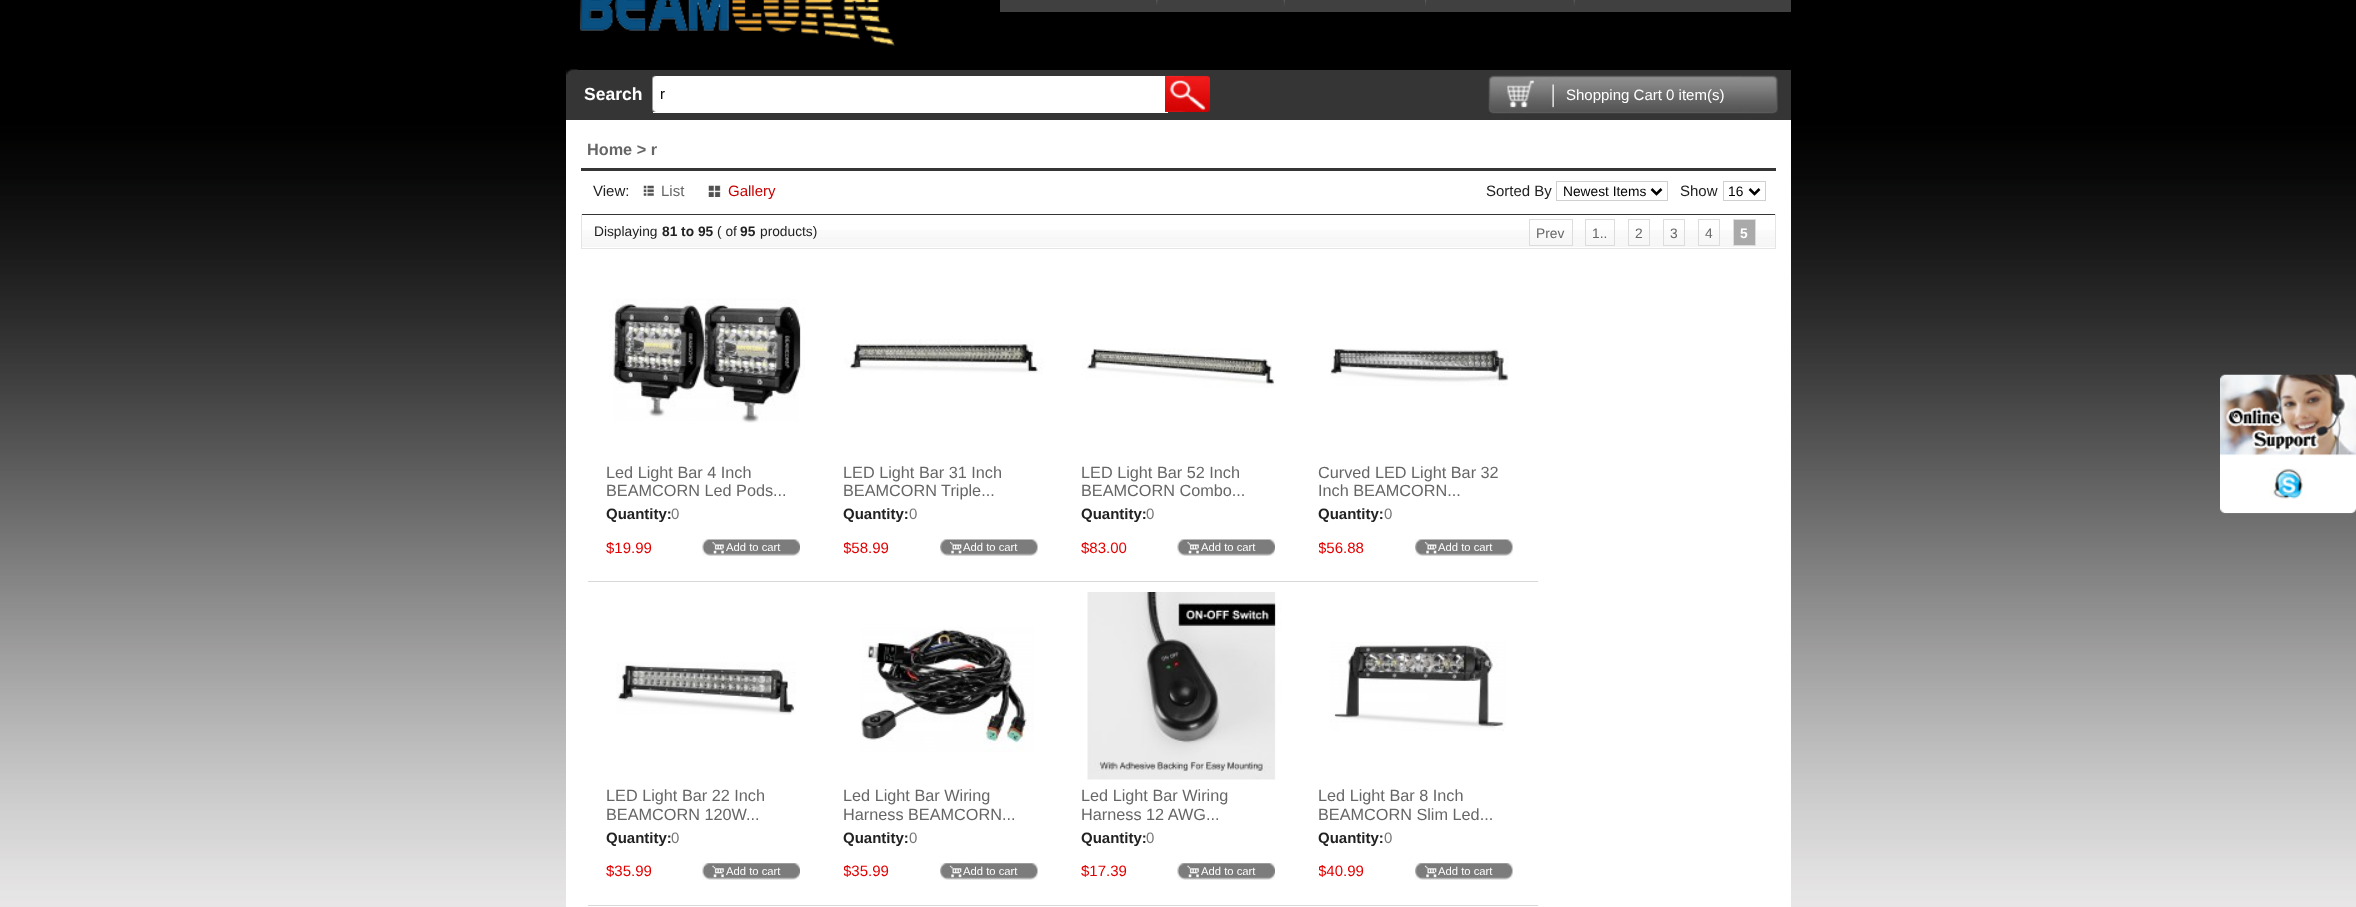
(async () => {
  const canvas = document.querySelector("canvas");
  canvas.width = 2356;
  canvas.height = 907;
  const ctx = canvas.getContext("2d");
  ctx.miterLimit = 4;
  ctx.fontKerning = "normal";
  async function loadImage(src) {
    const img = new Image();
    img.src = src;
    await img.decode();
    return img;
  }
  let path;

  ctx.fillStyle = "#ffffff";
  ctx.fillRect(0, 0, 2356, 907);
  ctx.drawImage(await loadImage("img/1.png"), 0, 0, 2356, 907);
  ctx.drawImage(await loadImage("img/2.png"), 579, 0, 316, 46);
  ctx.fillStyle = "#404040";
  ctx.fillRect(1000, 0, 791, 12);
  ctx.drawImage(await loadImage("img/3.png"), 1156, 0, 2, 5);
  ctx.drawImage(await loadImage("img/4.png"), 1283, 0, 2, 6);
  ctx.drawImage(await loadImage("img/5.png"), 1425, 0, 2, 6);
  ctx.drawImage(await loadImage("img/4.png"), 1573, 0, 2, 6);
  ctx.fillStyle = "#353535";
  ctx.fillRect(566, 70, 1225, 50);
  ctx.drawImage(await loadImage("img/6.png"), 566, 69, 12, 6);
  ctx.fillStyle = "#ffffff";
  ctx.fillRect(653, 76, 515, 37);
  ctx.drawImage(await loadImage("img/7.png"), 652, 75, 5, 37);
  ctx.drawImage(await loadImage("img/8.png"), 1165, 75, 45, 37);
  ctx.drawImage(await loadImage("img/9.png"), 1488, 75, 290, 39);
  ctx.fillRect(566, 120, 1225, 787);
  ctx.fillStyle = "#353535";
  ctx.fillRect(581, 168, 1195, 3);
  ctx.drawImage(await loadImage("img/10.png"), 643, 185, 11, 12);
  ctx.drawImage(await loadImage("img/11.png"), 708, 185, 13, 12);
  ctx.strokeStyle = "#d0d0d0";
  ctx.strokeRect(1556.5, 181.5, 111, 19);
  path = new Path2D("M1651.5 189L1656.5 194L1661.5 189");
  ctx.strokeStyle = "#000000";
  ctx.lineWidth = 2.5;
  ctx.stroke(path);
  ctx.strokeStyle = "#d0d0d0";
  ctx.lineWidth = 1;
  ctx.strokeRect(1723.5, 181.5, 42, 19);
  path = new Path2D("M1749.5 189L1754.5 194L1759.5 189");
  ctx.strokeStyle = "#000000";
  ctx.lineWidth = 2.5;
  ctx.stroke(path);
  ctx.drawImage(await loadImage("img/12.png"), 582, 230, 1193, 17);
  for (const [x, y, w, h, color] of [
    [581, 214, 1195, 1, "#353535"],
    [1775, 214, 1, 35, "#e5e5e5"],
    [581, 248, 1195, 1, "#e5e5e5"],
    [581, 214, 1, 35, "#e5e5e5"],
  ]) {
    ctx.fillStyle = color;
    ctx.fillRect(x, y, w, h);
  }
  ctx.strokeStyle = "#dddddd";
  ctx.lineWidth = 1;
  ctx.strokeRect(1529.5, 219.5, 43, 26);
  ctx.strokeRect(1585.5, 219.5, 29, 26);
  ctx.strokeRect(1628.5, 219.5, 21, 26);
  ctx.strokeRect(1663.5, 219.5, 21, 26);
  ctx.strokeRect(1698.5, 219.5, 21, 26);
  ctx.fillStyle = "#aaaaaa";
  ctx.beginPath();
  ctx.rect(1733.5, 219.5, 22, 26);
  ctx.fill();
  ctx.stroke();
  ctx.fillStyle = "#d8d8d8";
  ctx.fillRect(588, 581, 950, 1);
  ctx.drawImage(await loadImage("img/13.png"), 609, 298, 196, 125);
  ctx.drawImage(await loadImage("img/14.png"), 702, 539, 98, 17);
  ctx.drawImage(await loadImage("img/15.png"), 844, 339, 200, 35);
  ctx.drawImage(await loadImage("img/16.png"), 940, 539, 98, 17);
  ctx.drawImage(await loadImage("img/17.png"), 1081, 348, 194, 40);
  ctx.drawImage(await loadImage("img/14.png"), 1177, 539, 98, 17);
  ctx.drawImage(await loadImage("img/18.png"), 1330, 348, 179, 38);
  ctx.drawImage(await loadImage("img/19.png"), 1415, 539, 98, 17);
  ctx.fillRect(588, 905, 950, 1);
  ctx.drawImage(await loadImage("img/20.png"), 616, 662, 180, 53);
  ctx.drawImage(await loadImage("img/21.png"), 702, 863, 98, 17);
  ctx.drawImage(await loadImage("img/22.png"), 860, 627, 174, 125);
  ctx.drawImage(await loadImage("img/23.png"), 940, 863, 98, 17);
  ctx.drawImage(await loadImage("img/24.png"), 1087, 592, 194, 188);
  ctx.drawImage(await loadImage("img/21.png"), 1177, 863, 98, 17);
  ctx.drawImage(await loadImage("img/25.png"), 1330, 642, 176, 89);
  ctx.drawImage(await loadImage("img/26.png"), 1415, 863, 98, 17);
  ctx.drawImage(await loadImage("img/27.png"), 2220, 374, 136, 140);
  ctx.drawImage(await loadImage("img/28.png"), 2270, 468, 36, 31);
  ctx.font = "bold 17.5px Liberation Sans";
  ctx.fillStyle = "#ffffff";
  ctx.fillText("Search", 584, 100);
  ctx.font = "15px Liberation Sans";
  ctx.fillStyle = "#000000";
  ctx.fillText("r", 660, 99);
  ctx.fillStyle = "#ffffff";
  ctx.fillText("Shopping Cart 0 item(s)", 1566, 100);
  ctx.font = "bold 16.25px Liberation Sans";
  ctx.fillStyle = "#666666";
  ctx.fillText("Home > r", 587, 155);
  ctx.font = "15px Liberation Sans";
  ctx.fillStyle = "#222222";
  ctx.fillText("View:", 593, 196);
  ctx.fillStyle = "#666666";
  ctx.fillText("List", 661, 196);
  ctx.fillStyle = "#c60000";
  ctx.fillText("Gallery", 728, 196);
  ctx.fillStyle = "#222222";
  ctx.fillText("Sorted By", 1486, 196);
  ctx.font = "13.75px Liberation Sans";
  ctx.fillStyle = "#000000";
  ctx.fillText("Newest Items", 1563, 196);
  ctx.font = "15px Liberation Sans";
  ctx.fillStyle = "#222222";
  ctx.fillText("Show", 1680, 196);
  ctx.font = "13.75px Liberation Sans";
  ctx.fillStyle = "#000000";
  ctx.fillText("16", 1728, 196);
  ctx.fillStyle = "#222222";
  ctx.fillText("Displaying", 594, 236);
  ctx.font = "bold 13.75px Liberation Sans";
  ctx.fillText("81 to 95", 662, 236);
  ctx.font = "13.75px Liberation Sans";
  ctx.fillText("( of", 717, 236);
  ctx.font = "bold 13.75px Liberation Sans";
  ctx.fillText("95", 740, 236);
  ctx.font = "13.75px Liberation Sans";
  ctx.fillText("products)", 760, 236);
  ctx.fillStyle = "#666666";
  for (const [text, x, y] of [
    ["Prev", 1536, 238],
    ["1..", 1592, 238],
    ["2", 1635, 238],
    ["3", 1670, 238],
    ["4", 1705, 238],
  ]) {
    ctx.fillText(text, x, y);
  }
  ctx.font = "bold 13.75px Liberation Sans";
  ctx.fillStyle = "#ffffff";
  ctx.fillText("5", 1740, 238);
  ctx.font = "16.25px Liberation Sans";
  ctx.fillStyle = "#666666";
  ctx.fillText("Led Light Bar 4 Inch", 606, 478);
  ctx.fillText("BEAMCORN Led Pods...", 606, 496);
  ctx.font = "bold 15px Liberation Sans";
  ctx.fillStyle = "#222222";
  ctx.fillText("Quantity:", 606, 519);
  ctx.font = "15px Liberation Sans";
  ctx.fillStyle = "#777777";
  ctx.fillText("0", 671, 519);
  ctx.fillStyle = "#e30000";
  ctx.fillText("$19.99", 606, 553);
  ctx.font = "11.25px Liberation Sans";
  ctx.fillStyle = "#ffffff";
  ctx.fillText("Add to cart", 726, 551);
  ctx.font = "16.25px Liberation Sans";
  ctx.fillStyle = "#666666";
  ctx.fillText("LED Light Bar 31 Inch", 843, 478);
  ctx.fillText("BEAMCORN Triple...", 843, 496);
  ctx.font = "bold 15px Liberation Sans";
  ctx.fillStyle = "#222222";
  ctx.fillText("Quantity:", 843, 519);
  ctx.font = "15px Liberation Sans";
  ctx.fillStyle = "#777777";
  ctx.fillText("0", 909, 519);
  ctx.save();
  ctx.beginPath();
  ctx.rect(844, 528, 200, 35);
  ctx.clip();
  ctx.fillStyle = "#e30000";
  ctx.fillText("$58.99", 843, 553);
  ctx.restore();
  ctx.font = "11.25px Liberation Sans";
  ctx.fillStyle = "#ffffff";
  ctx.fillText("Add to cart", 963, 551);
  ctx.font = "16.25px Liberation Sans";
  ctx.fillStyle = "#666666";
  ctx.fillText("LED Light Bar 52 Inch", 1081, 478);
  ctx.fillText("BEAMCORN Combo...", 1081, 496);
  ctx.font = "bold 15px Liberation Sans";
  ctx.fillStyle = "#222222";
  ctx.fillText("Quantity:", 1081, 519);
  ctx.font = "15px Liberation Sans";
  ctx.fillStyle = "#777777";
  ctx.fillText("0", 1146, 519);
  ctx.fillStyle = "#e30000";
  ctx.fillText("$83.00", 1081, 553);
  ctx.font = "11.25px Liberation Sans";
  ctx.fillStyle = "#ffffff";
  ctx.fillText("Add to cart", 1201, 551);
  ctx.font = "16.25px Liberation Sans";
  ctx.fillStyle = "#666666";
  ctx.fillText("Curved LED Light Bar 32", 1318, 478);
  ctx.fillText("Inch BEAMCORN...", 1318, 496);
  ctx.font = "bold 15px Liberation Sans";
  ctx.fillStyle = "#222222";
  ctx.fillText("Quantity:", 1318, 519);
  ctx.font = "15px Liberation Sans";
  ctx.fillStyle = "#777777";
  ctx.fillText("0", 1384, 519);
  ctx.save();
  ctx.beginPath();
  ctx.rect(1319, 528, 200, 35);
  ctx.clip();
  ctx.fillStyle = "#e30000";
  ctx.fillText("$56.88", 1318, 553);
  ctx.restore();
  ctx.font = "11.25px Liberation Sans";
  ctx.fillStyle = "#ffffff";
  ctx.fillText("Add to cart", 1438, 551);
  ctx.font = "16.25px Liberation Sans";
  ctx.fillStyle = "#666666";
  ctx.fillText("LED Light Bar 22 Inch", 606, 801);
  ctx.fillText("BEAMCORN 120W...", 606, 820);
  ctx.font = "bold 15px Liberation Sans";
  ctx.fillStyle = "#222222";
  ctx.fillText("Quantity:", 606, 843);
  ctx.font = "15px Liberation Sans";
  ctx.fillStyle = "#777777";
  ctx.fillText("0", 671, 843);
  ctx.fillStyle = "#e30000";
  ctx.fillText("$35.99", 606, 876);
  ctx.font = "11.25px Liberation Sans";
  ctx.fillStyle = "#ffffff";
  ctx.fillText("Add to cart", 726, 875);
  ctx.font = "16.25px Liberation Sans";
  ctx.fillStyle = "#666666";
  ctx.fillText("Led Light Bar Wiring", 843, 801);
  ctx.fillText("Harness BEAMCORN...", 843, 820);
  ctx.font = "bold 15px Liberation Sans";
  ctx.fillStyle = "#222222";
  ctx.fillText("Quantity:", 843, 843);
  ctx.font = "15px Liberation Sans";
  ctx.fillStyle = "#777777";
  ctx.fillText("0", 909, 843);
  ctx.save();
  ctx.beginPath();
  ctx.rect(844, 851, 200, 35);
  ctx.clip();
  ctx.fillStyle = "#e30000";
  ctx.fillText("$35.99", 843, 876);
  ctx.restore();
  ctx.font = "11.25px Liberation Sans";
  ctx.fillStyle = "#ffffff";
  ctx.fillText("Add to cart", 963, 875);
  ctx.font = "16.25px Liberation Sans";
  ctx.fillStyle = "#666666";
  ctx.fillText("Led Light Bar Wiring", 1081, 801);
  ctx.fillText("Harness 12 AWG...", 1081, 820);
  ctx.font = "bold 15px Liberation Sans";
  ctx.fillStyle = "#222222";
  ctx.fillText("Quantity:", 1081, 843);
  ctx.font = "15px Liberation Sans";
  ctx.fillStyle = "#777777";
  ctx.fillText("0", 1146, 843);
  ctx.fillStyle = "#e30000";
  ctx.fillText("$17.39", 1081, 876);
  ctx.font = "11.25px Liberation Sans";
  ctx.fillStyle = "#ffffff";
  ctx.fillText("Add to cart", 1201, 875);
  ctx.font = "16.25px Liberation Sans";
  ctx.fillStyle = "#666666";
  ctx.fillText("Led Light Bar 8 Inch", 1318, 801);
  ctx.fillText("BEAMCORN Slim Led...", 1318, 820);
  ctx.font = "bold 15px Liberation Sans";
  ctx.fillStyle = "#222222";
  ctx.fillText("Quantity:", 1318, 843);
  ctx.font = "15px Liberation Sans";
  ctx.fillStyle = "#777777";
  ctx.fillText("0", 1384, 843);
  ctx.save();
  ctx.beginPath();
  ctx.rect(1319, 851, 200, 35);
  ctx.clip();
  ctx.fillStyle = "#e30000";
  ctx.fillText("$40.99", 1318, 876);
  ctx.restore();
  ctx.font = "11.25px Liberation Sans";
  ctx.fillStyle = "#ffffff";
  ctx.fillText("Add to cart", 1438, 875);
})();
